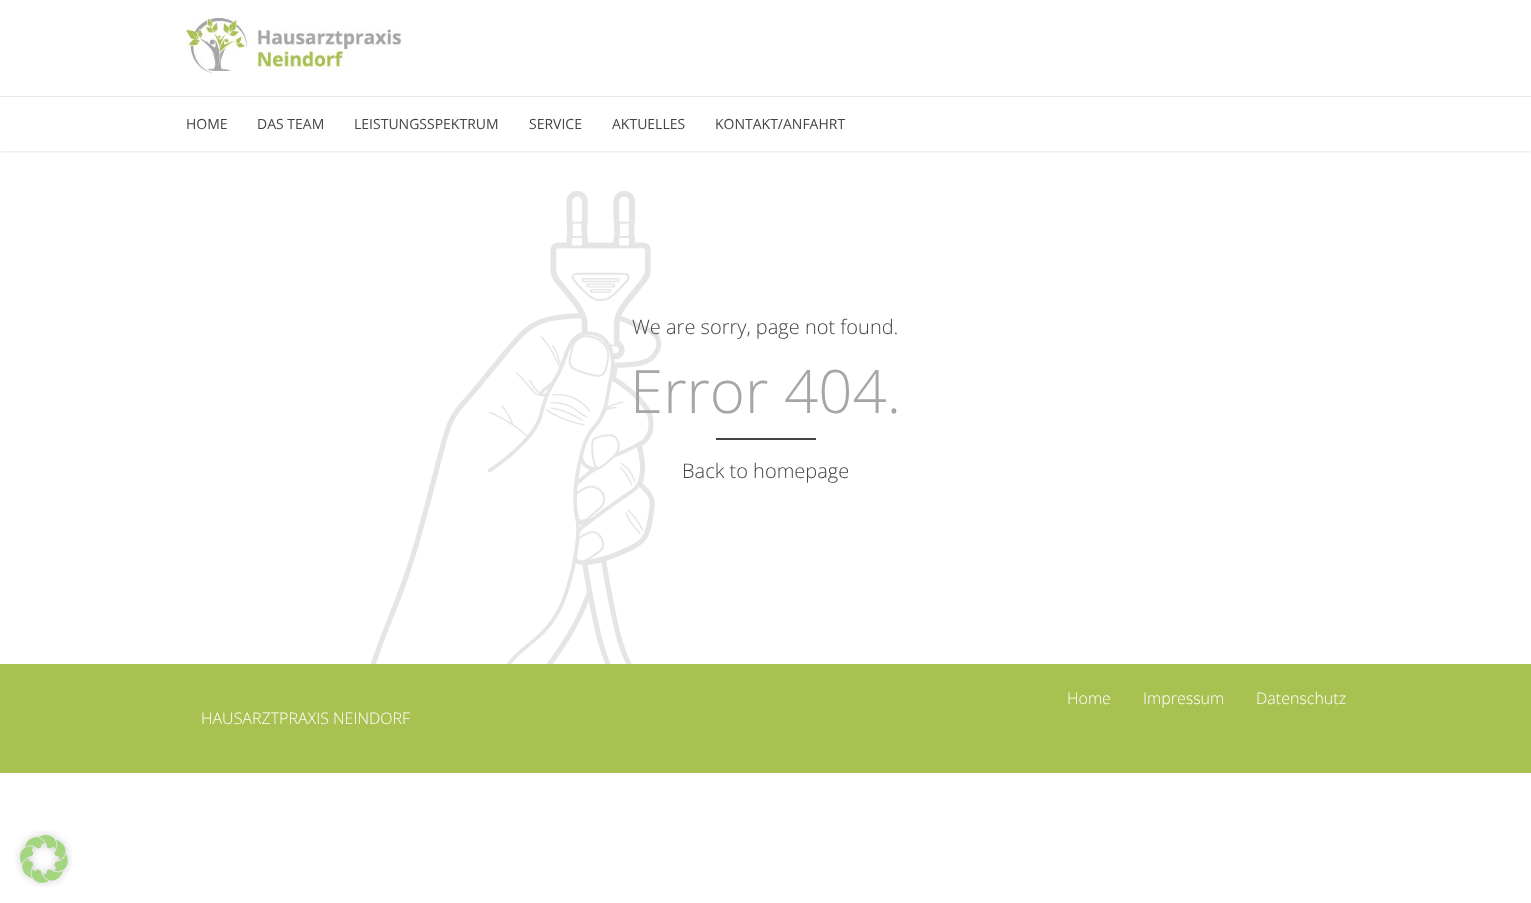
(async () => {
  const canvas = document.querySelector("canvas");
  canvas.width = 1531;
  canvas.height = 903;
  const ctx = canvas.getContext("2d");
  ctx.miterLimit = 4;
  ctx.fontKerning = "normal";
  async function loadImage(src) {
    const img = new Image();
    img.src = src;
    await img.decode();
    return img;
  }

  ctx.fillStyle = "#ffffff";
  ctx.fillRect(0, 0, 1531, 903);
  ctx.save();
  ctx.beginPath();
  ctx.rect(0, 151, 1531, 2);
  ctx.clip();
  ctx.fillStyle = "rgba(0, 0, 0, 0.1)";
  ctx.filter = "blur(1.5px)";
  ctx.beginPath();
  ctx.rect(0, 1, 1531, 151);
  ctx.fill();
  ctx.filter = "none";
  ctx.restore();
  ctx.drawImage(await loadImage("img/1.png"), 186, 18, 215, 55);
  ctx.fillStyle = "#e6e6e6";
  ctx.fillRect(0, 96, 1531, 1);
  ctx.drawImage(await loadImage("img/2.png"), 371, 191, 291, 473);
  ctx.fillStyle = "#444444";
  ctx.fillRect(716, 438, 100, 2);
  ctx.fillStyle = "#a9c151";
  ctx.fillRect(0, 664, 1531, 109);
  ctx.drawImage(await loadImage("img/3.png"), 15, 830, 57, 57);
  ctx.font = "14px Open Sans";
  ctx.fillStyle = "#444444";
  for (const [text, x, y] of [
    ["HOME", 186, 129],
    ["DAS TEAM", 257, 129],
    ["LEISTUNGSSPEKTRUM", 354, 129],
    ["SERVICE", 529, 129],
    ["AKTUELLES", 612, 129],
    ["KONTAKT/ANFAHRT", 715, 129],
  ]) {
    ctx.fillText(text, x, y);
  }
  ctx.font = "300 20px Open Sans";
  ctx.fillText("We are sorry, page not found.", 632, 334);
  ctx.font = "300 60px Open Sans";
  ctx.fillStyle = "#a7a6a6";
  ctx.fillText("Error 404.", 630, 413);
  ctx.font = "300 20px Open Sans";
  ctx.fillStyle = "#444444";
  ctx.fillText("Back to homepage", 682, 478);
  ctx.font = "300 16px Open Sans";
  ctx.fillStyle = "#ffffff";
  for (const [text, x, y] of [
    ["Home", 1067, 704],
    ["Impressum", 1143, 704],
    ["Datenschutz", 1256, 704],
    ["HAUSARZTPRAXIS NEINDORF", 201, 724],
  ]) {
    ctx.fillText(text, x, y);
  }
})();
